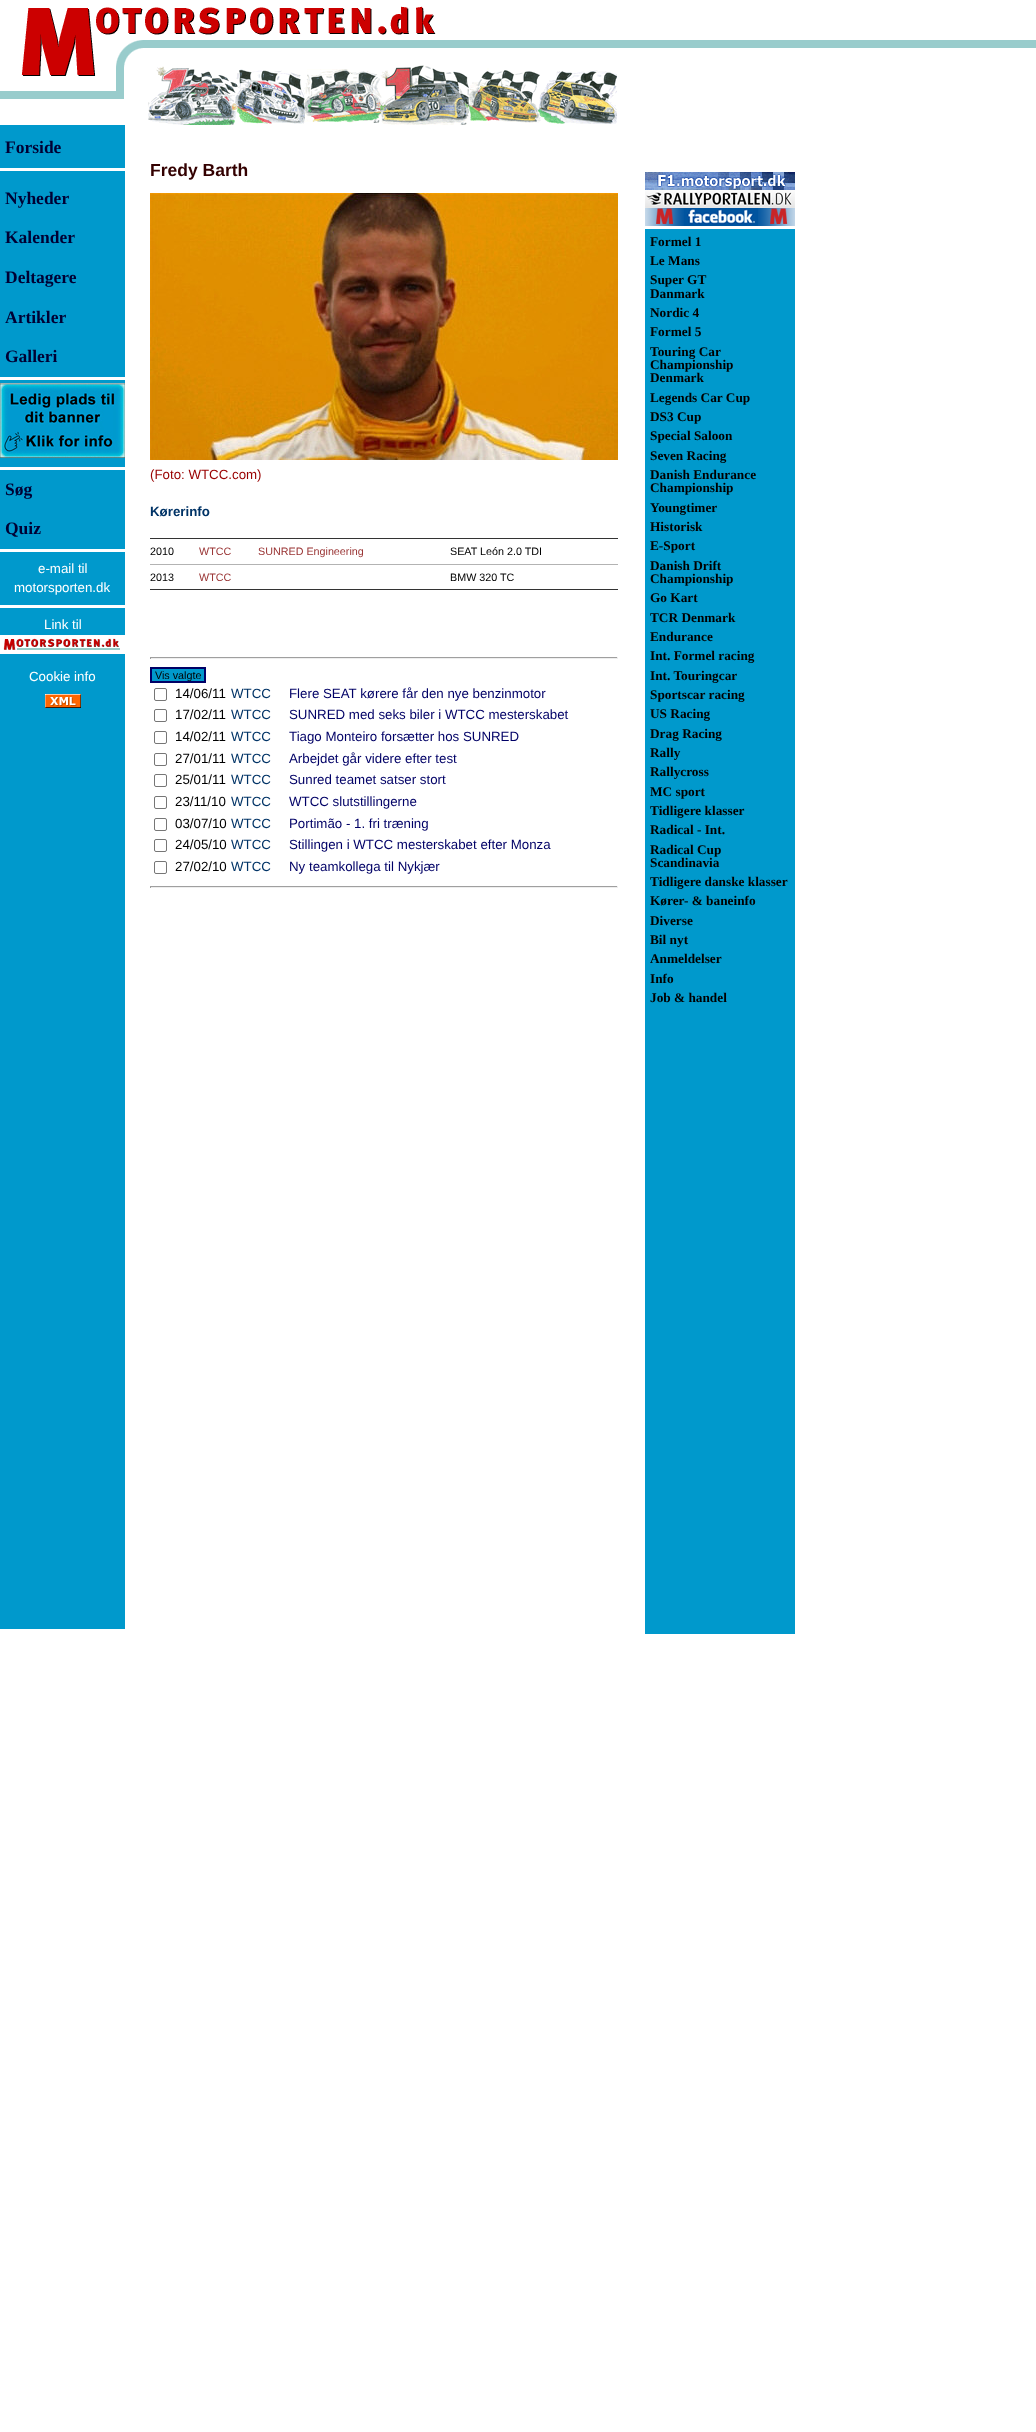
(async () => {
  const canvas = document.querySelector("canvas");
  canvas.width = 1036;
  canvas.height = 2432;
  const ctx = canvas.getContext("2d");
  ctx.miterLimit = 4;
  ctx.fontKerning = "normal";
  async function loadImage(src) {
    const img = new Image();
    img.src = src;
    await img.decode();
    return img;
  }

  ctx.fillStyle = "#ffffff";
  ctx.fillRect(0, 0, 1036, 2432);
  ctx.fillStyle = "#99cccc";
  ctx.fillRect(143, 40, 893, 8);
  ctx.drawImage(await loadImage("img/1.png"), 0, 8, 96, 68);
  ctx.drawImage(await loadImage("img/2.png"), 96, 6, 340, 29);
  ctx.fillRect(0, 91, 96, 8);
  ctx.drawImage(await loadImage("img/3.png"), 96, 40, 47, 59);
  ctx.drawImage(await loadImage("img/4.png"), 148, 65, 469, 60);
  for (const [x, y, w, h, color] of [
    [0, 125, 125, 1504, "#0099cc"],
    [0, 168, 125, 3, "#ffffff"],
    [0, 377, 125, 3, "#ffffff"],
  ]) {
    ctx.fillStyle = color;
    ctx.fillRect(x, y, w, h);
  }
  ctx.drawImage(await loadImage("img/5.png"), 0, 383, 125, 75);
  for (const [x, y, w, h, color] of [
    [0, 467, 125, 3, "#ffffff"],
    [0, 549, 125, 3, "#ffffff"],
    [0, 605, 125, 3, "#ffffff"],
  ]) {
    ctx.fillStyle = color;
    ctx.fillRect(x, y, w, h);
  }
  ctx.drawImage(await loadImage("img/6.png"), 0, 635, 125, 19);
  ctx.drawImage(await loadImage("img/7.png"), 45, 694, 36, 14);
  ctx.drawImage(await loadImage("img/8.png"), 150, 193, 468, 267);
  for (const [x, y, w, h, color] of [
    [150, 538, 468, 1, "#333333"],
    [150, 564, 468, 1, "#b3b3b3"],
    [150, 589, 468, 1, "#333333"],
    [150, 657, 468, 1, "#9f9f9f"],
    [617, 657, 1, 2, "#eeeeee"],
    [150, 658, 468, 1, "#eeeeee"],
    [150, 657, 1, 2, "#9f9f9f"],
  ]) {
    ctx.fillStyle = color;
    ctx.fillRect(x, y, w, h);
  }
  ctx.fillStyle = "#0099cc";
  ctx.beginPath();
  ctx.rect(151, 668, 54, 14);
  ctx.fill();
  ctx.strokeStyle = "#000066";
  ctx.lineWidth = 2;
  ctx.stroke();
  ctx.beginPath();
  ctx.roundRect(154.5, 688.5, 12, 12, 1.5);
  ctx.strokeStyle = "#767676";
  ctx.lineWidth = 1;
  ctx.stroke();
  ctx.beginPath();
  ctx.roundRect(154.5, 709.5, 12, 12, 1.5);
  ctx.stroke();
  ctx.beginPath();
  ctx.roundRect(154.5, 731.5, 12, 12, 1.5);
  ctx.stroke();
  ctx.beginPath();
  ctx.roundRect(154.5, 753.5, 12, 12, 1.5);
  ctx.stroke();
  ctx.beginPath();
  ctx.roundRect(154.5, 774.5, 12, 12, 1.5);
  ctx.stroke();
  ctx.beginPath();
  ctx.roundRect(154.5, 796.5, 12, 12, 1.5);
  ctx.stroke();
  ctx.beginPath();
  ctx.roundRect(154.5, 818.5, 12, 12, 1.5);
  ctx.stroke();
  ctx.beginPath();
  ctx.roundRect(154.5, 839.5, 12, 12, 1.5);
  ctx.stroke();
  ctx.beginPath();
  ctx.roundRect(154.5, 861.5, 12, 12, 1.5);
  ctx.stroke();
  for (const [x, y, w, h, color] of [
    [150, 886, 468, 1, "#9f9f9f"],
    [617, 886, 1, 2, "#eeeeee"],
    [150, 887, 468, 1, "#eeeeee"],
    [150, 886, 1, 2, "#9f9f9f"],
    [645, 229, 150, 1405, "#0099cc"],
  ]) {
    ctx.fillStyle = color;
    ctx.fillRect(x, y, w, h);
  }
  ctx.drawImage(await loadImage("img/9.png"), 645, 172, 150, 18);
  ctx.drawImage(await loadImage("img/10.png"), 645, 190, 150, 18);
  ctx.drawImage(await loadImage("img/11.png"), 645, 208, 150, 18);
  ctx.font = "bold 17.5px Liberation Serif";
  ctx.fillStyle = "#000033";
  for (const [text, x, y] of [
    ["Forside", 5, 153],
    ["Nyheder", 5, 204],
    ["Kalender", 5, 243],
    ["Deltagere", 5, 283],
    ["Artikler", 5, 323],
    ["Galleri", 5, 362],
    ["Søg", 5, 495],
    ["Quiz", 5, 534],
  ]) {
    ctx.fillText(text, x, y);
  }
  ctx.font = "13.3px Liberation Sans";
  ctx.fillStyle = "#ffffff";
  for (const [text, x, y] of [
    ["e-mail til", 38, 573],
    ["motorsporten.dk", 14, 592],
    ["Link til", 44, 629],
    ["Cookie info", 29, 681],
  ]) {
    ctx.fillText(text, x, y);
  }
  ctx.font = "bold 17.5px Liberation Sans";
  ctx.fillStyle = "#330000";
  ctx.fillText("Fredy Barth", 150, 176);
  ctx.font = "13.3px Liberation Sans";
  ctx.fillStyle = "#990000";
  ctx.fillText("(Foto: WTCC.com)", 150, 479);
  ctx.font = "bold 13.3px Liberation Sans";
  ctx.fillStyle = "#003366";
  ctx.fillText("Kørerinfo", 150, 516);
  ctx.font = "10.75px Liberation Sans";
  ctx.fillStyle = "#000000";
  ctx.fillText("2010", 150, 555);
  ctx.fillStyle = "#993333";
  ctx.fillText("WTCC", 199, 555);
  ctx.fillText("SUNRED Engineering", 258, 555);
  ctx.fillStyle = "#000000";
  ctx.fillText("SEAT León 2.0 TDI", 450, 555);
  ctx.fillText("2013", 150, 581);
  ctx.fillStyle = "#993333";
  ctx.fillText("WTCC", 199, 581);
  ctx.fillStyle = "#000000";
  ctx.fillText("BMW 320 TC", 450, 581);
  ctx.fillText("Vis valgte", 155, 679);
  ctx.font = "13.3px Liberation Sans";
  ctx.fillText("14/06/11", 175, 698);
  ctx.fillStyle = "#003366";
  ctx.fillText("WTCC", 231, 698);
  ctx.fillStyle = "#000066";
  ctx.fillText("Flere SEAT kørere får den nye benzinmotor", 289, 698);
  ctx.fillStyle = "#000000";
  ctx.fillText("17/02/11", 175, 719);
  ctx.fillStyle = "#003366";
  ctx.fillText("WTCC", 231, 719);
  ctx.fillStyle = "#000066";
  ctx.fillText("SUNRED med seks biler i WTCC mesterskabet", 289, 719);
  ctx.fillStyle = "#000000";
  ctx.fillText("14/02/11", 175, 741);
  ctx.fillStyle = "#003366";
  ctx.fillText("WTCC", 231, 741);
  ctx.fillStyle = "#000066";
  ctx.fillText("Tiago Monteiro forsætter hos SUNRED", 289, 741);
  ctx.fillStyle = "#000000";
  ctx.fillText("27/01/11", 175, 763);
  ctx.fillStyle = "#003366";
  ctx.fillText("WTCC", 231, 763);
  ctx.fillStyle = "#000066";
  ctx.fillText("Arbejdet går videre efter test", 289, 763);
  ctx.fillStyle = "#000000";
  ctx.fillText("25/01/11", 175, 784);
  ctx.fillStyle = "#003366";
  ctx.fillText("WTCC", 231, 784);
  ctx.fillStyle = "#000066";
  ctx.fillText("Sunred teamet satser stort", 289, 784);
  ctx.fillStyle = "#000000";
  ctx.fillText("23/11/10", 175, 806);
  ctx.fillStyle = "#003366";
  ctx.fillText("WTCC", 231, 806);
  ctx.fillStyle = "#000066";
  ctx.fillText("WTCC slutstillingerne", 289, 806);
  ctx.fillStyle = "#000000";
  ctx.fillText("03/07/10", 175, 828);
  ctx.fillStyle = "#003366";
  ctx.fillText("WTCC", 231, 828);
  ctx.fillStyle = "#000066";
  ctx.fillText("Portimão - 1. fri træning", 289, 828);
  ctx.fillStyle = "#000000";
  ctx.fillText("24/05/10", 175, 849);
  ctx.fillStyle = "#003366";
  ctx.fillText("WTCC", 231, 849);
  ctx.fillStyle = "#000066";
  ctx.fillText("Stillingen i WTCC mesterskabet efter Monza", 289, 849);
  ctx.fillStyle = "#000000";
  ctx.fillText("27/02/10", 175, 871);
  ctx.fillStyle = "#003366";
  ctx.fillText("WTCC", 231, 871);
  ctx.fillStyle = "#000066";
  ctx.fillText("Ny teamkollega til Nykjær", 289, 871);
  ctx.font = "bold 13.3px Liberation Serif";
  ctx.fillStyle = "#000000";
  for (const [text, x, y] of [
    ["Formel 1", 650, 246],
    ["Le Mans", 650, 265],
    ["Super GT", 650, 284],
    ["Danmark", 650, 298],
    ["Nordic 4", 650, 317],
    ["Formel 5", 650, 336],
    ["Touring Car", 650, 356],
    ["Championship", 650, 369],
    ["Denmark", 650, 382],
    ["Legends Car Cup", 650, 402],
    ["DS3 Cup", 650, 421],
    ["Special Saloon", 650, 440],
    ["Seven Racing", 650, 460],
    ["Danish Endurance", 650, 479],
    ["Championship", 650, 492],
    ["Youngtimer", 650, 512],
    ["Historisk", 650, 531],
    ["E-Sport", 650, 550],
    ["Danish Drift", 650, 570],
    ["Championship", 650, 583],
    ["Go Kart", 650, 602],
    ["TCR Denmark", 650, 622],
    ["Endurance", 650, 641],
    ["Int. Formel racing", 650, 660],
    ["Int. Touringcar", 650, 680],
    ["Sportscar racing", 650, 699],
    ["US Racing", 650, 718],
    ["Drag Racing", 650, 738],
    ["Rally", 650, 757],
    ["Rallycross", 650, 776],
    ["MC sport", 650, 796],
    ["Tidligere klasser", 650, 815],
    ["Radical - Int.", 650, 834],
    ["Radical Cup", 650, 854],
    ["Scandinavia", 650, 867],
    ["Tidligere danske klasser", 650, 886],
    ["Kører- & baneinfo", 650, 905],
    ["Diverse", 650, 925],
    ["Bil nyt", 650, 944],
    ["Anmeldelser", 650, 963],
    ["Info", 650, 983],
    ["Job & handel", 650, 1002],
  ]) {
    ctx.fillText(text, x, y);
  }
})();
